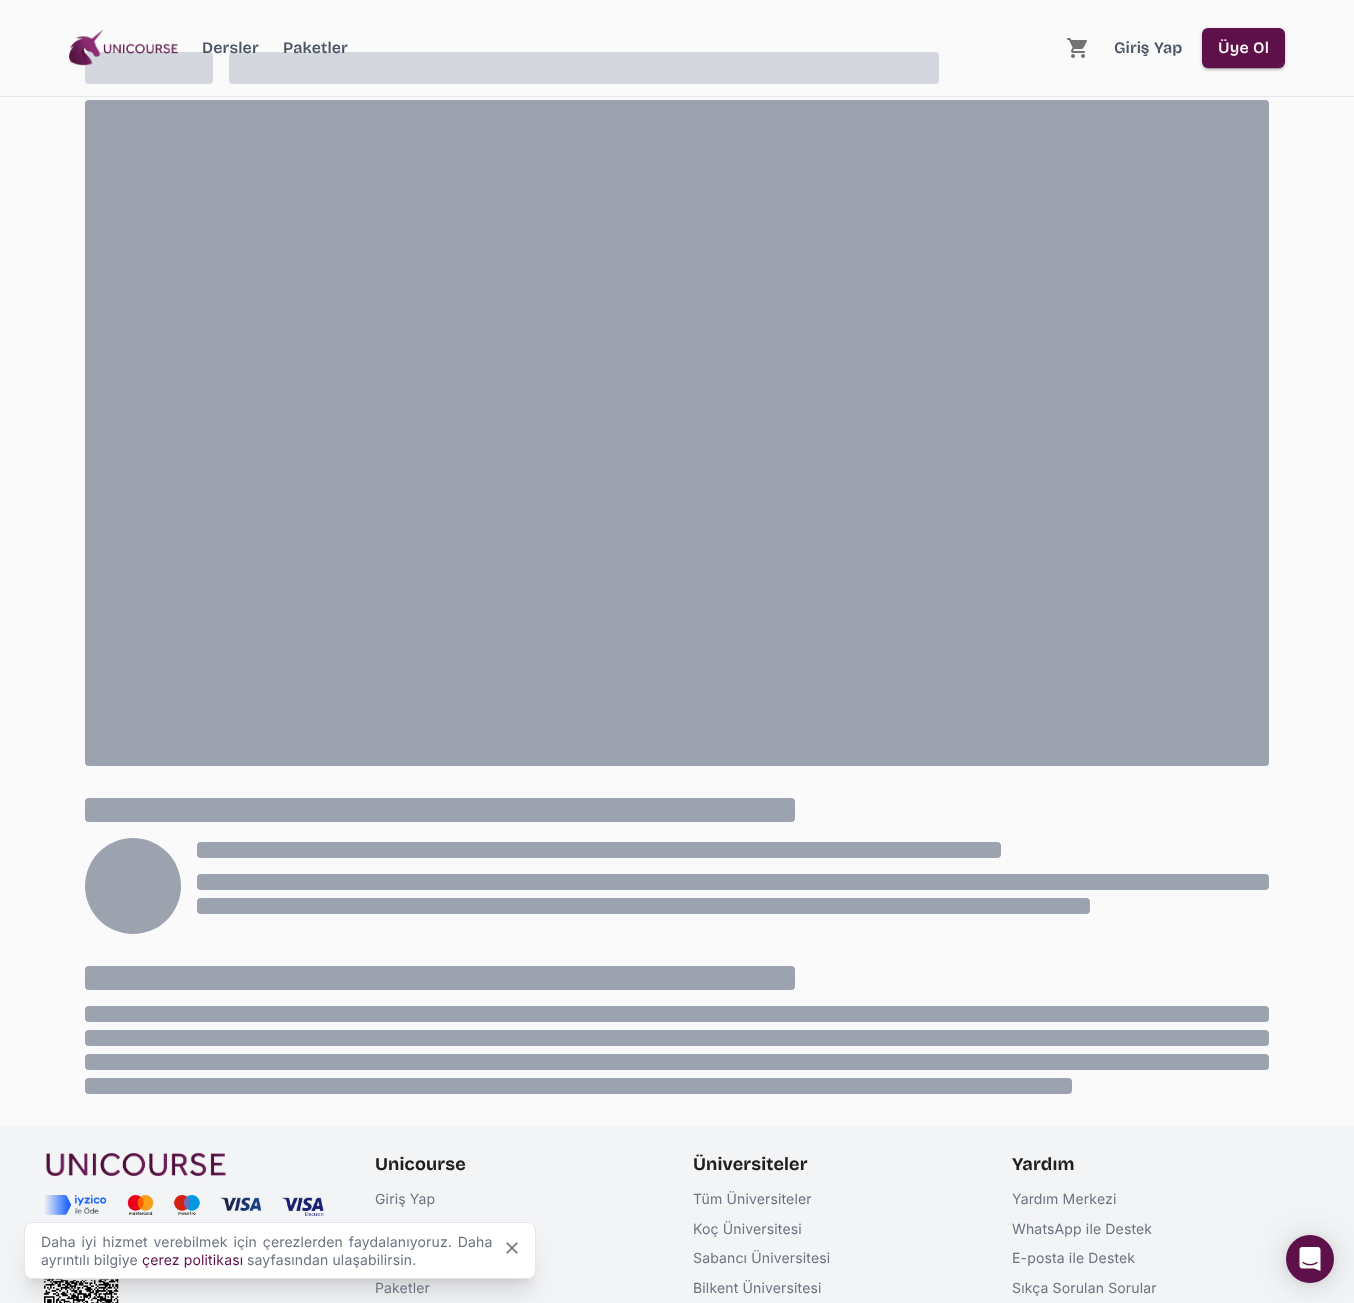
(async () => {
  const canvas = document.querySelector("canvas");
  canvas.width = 1354;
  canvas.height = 1303;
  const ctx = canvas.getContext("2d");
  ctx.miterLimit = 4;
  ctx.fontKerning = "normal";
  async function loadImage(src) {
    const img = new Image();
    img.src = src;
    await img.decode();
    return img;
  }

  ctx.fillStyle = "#fafafa";
  ctx.fillRect(0, 0, 1354, 1303);
  ctx.fillStyle = "#e5e7eb";
  ctx.fillRect(0, 96, 1354, 1);
  ctx.fillStyle = "#d4d7dd";
  ctx.beginPath();
  ctx.roundRect(85, 52, 128, 32, 4);
  ctx.fill();
  ctx.drawImage(await loadImage("img/1.png"), 69, 29, 109, 37);
  ctx.drawImage(await loadImage("img/2.png"), 1067, 38, 20, 20);
  ctx.fillStyle = "rgba(0, 0, 0, 0.12)";
  ctx.filter = "blur(2.5px)";
  ctx.beginPath();
  ctx.roundRect(1202, 29, 83, 40, 6);
  ctx.fill();
  ctx.filter = "none";
  ctx.fillStyle = "rgba(0, 0, 0, 0.14)";
  ctx.filter = "blur(1px)";
  ctx.beginPath();
  ctx.roundRect(1202, 30, 83, 40, 6);
  ctx.fill();
  ctx.filter = "none";
  ctx.fillStyle = "rgba(0, 0, 0, 0.2)";
  ctx.filter = "blur(0.5px)";
  ctx.beginPath();
  ctx.roundRect(1204, 33, 79, 36, 4);
  ctx.fill();
  ctx.filter = "none";
  ctx.fillStyle = "#5d1049";
  ctx.beginPath();
  ctx.roundRect(1202, 28, 83, 40, 6);
  ctx.fill();
  ctx.fillStyle = "#d4d7dd";
  ctx.beginPath();
  ctx.roundRect(229, 52, 710, 32, 4);
  ctx.fill();
  ctx.fillStyle = "#9ca3af";
  ctx.beginPath();
  ctx.roundRect(85, 100, 1184, 666, 4);
  ctx.fill();
  ctx.beginPath();
  ctx.roundRect(85, 798, 710, 24, 4);
  ctx.fill();
  ctx.beginPath();
  ctx.arc(133, 886, 48, 0, Math.PI * 2);
  ctx.fill();
  ctx.beginPath();
  ctx.roundRect(197, 842, 804, 16, 4);
  ctx.fill();
  ctx.beginPath();
  ctx.roundRect(197, 874, 1072, 16, 4);
  ctx.fill();
  ctx.beginPath();
  ctx.roundRect(197, 898, 893, 16, 4);
  ctx.fill();
  ctx.beginPath();
  ctx.roundRect(85, 966, 710, 24, 4);
  ctx.fill();
  ctx.beginPath();
  ctx.roundRect(85, 1006, 1184, 16, 4);
  ctx.fill();
  ctx.beginPath();
  ctx.roundRect(85, 1030, 1184, 16, 4);
  ctx.fill();
  ctx.beginPath();
  ctx.roundRect(85, 1054, 1184, 16, 4);
  ctx.fill();
  ctx.beginPath();
  ctx.roundRect(85, 1078, 987, 16, 4);
  ctx.fill();
  ctx.fillStyle = "#f3f4f6";
  ctx.fillRect(0, 1126, 1354, 177);
  ctx.drawImage(await loadImage("img/6.png"), 44, 1279, 75, 24);
  ctx.fillStyle = "rgba(0, 0, 0, 0.1)";
  ctx.filter = "blur(5px)";
  ctx.beginPath();
  ctx.roundRect(30, 1236, 500, 45, 2);
  ctx.fill();
  ctx.filter = "none";
  ctx.drawImage(await loadImage("img/5.png"), 45, 1195, 279, 21);
  ctx.filter = "blur(12.5px)";
  ctx.beginPath();
  ctx.roundRect(29, 1247, 502, 47, 3);
  ctx.fill();
  ctx.filter = "none";
  ctx.fillStyle = "#ffffff";
  ctx.beginPath();
  ctx.roundRect(24.5, 1222.5, 511, 56, 7.5);
  ctx.fill();
  ctx.strokeStyle = "#e5e7eb";
  ctx.stroke();
  ctx.drawImage(await loadImage("img/3.png"), 506, 1242, 12, 12);
  ctx.drawImage(await loadImage("img/4.png"), 46, 1152, 180, 25);
  ctx.fillStyle = "rgba(0, 0, 0, 0.16)";
  ctx.filter = "blur(16px)";
  ctx.beginPath();
  ctx.roundRect(1286, 1237, 48, 48, 24);
  ctx.fill();
  ctx.filter = "none";
  ctx.fillStyle = "rgba(0, 0, 0, 0.06)";
  ctx.filter = "blur(3px)";
  ctx.beginPath();
  ctx.roundRect(1286, 1236, 48, 48, 24);
  ctx.fill();
  ctx.filter = "none";
  ctx.fillStyle = "#5d1049";
  ctx.beginPath();
  ctx.arc(1310, 1259, 24, 0, Math.PI * 2);
  ctx.fill();
  ctx.drawImage(await loadImage("img/7.png"), 1299, 1247, 22, 24);
  ctx.letterSpacing = "0.15px";
  ctx.font = "600 16px Bricolage Grotesque";
  ctx.fillStyle = "#4b5563";
  for (const [text, x, y] of [
    ["Dersler", 202, 53],
    ["Paketler", 283, 53],
    ["Giri", 1114, 53],
  ]) {
    ctx.fillText(text, x, y);
  }
  ctx.font = "600 16px 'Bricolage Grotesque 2'";
  ctx.fillText("ş", 1141, 53);
  ctx.font = "600 16px Bricolage Grotesque";
  ctx.fillText("Yap", 1154, 53);
  ctx.letterSpacing = "0.25px";
  ctx.fillStyle = "#fbf5f3";
  ctx.fillText("Üye Ol", 1218, 53);
  ctx.letterSpacing = "0.15px";
  ctx.wordSpacing = "1.75px";
  ctx.font = "14px Inter";
  ctx.fillStyle = "#6b7280";
  ctx.fillText("Daha iyi hizmet verebilmek için çerezlerden faydalanıyoruz. Daha", 41, 1247);
  ctx.wordSpacing = "0px";
  ctx.fillText("ayrıntılı bilgiye", 41, 1265);
  ctx.fillStyle = "#5d1049";
  ctx.fillText("çerez politikası", 142, 1265);
  ctx.fillStyle = "#6b7280";
  ctx.fillText("sayfasından ulaşabilirsin.", 247, 1265);
  ctx.font = "bold 18px Bricolage Grotesque";
  ctx.fillStyle = "#202020";
  ctx.fillText("Unicourse", 375, 1170);
  ctx.font = "14px Inter";
  ctx.fillStyle = "#6b7280";
  ctx.fillText("Giriş Yap", 375, 1204);
  ctx.fillText("Paketler", 375, 1293);
  ctx.font = "bold 18px Bricolage Grotesque";
  ctx.fillStyle = "#202020";
  ctx.fillText("Üniversiteler", 693, 1170);
  ctx.font = "14px Inter";
  ctx.fillStyle = "#6b7280";
  for (const [text, x, y] of [
    ["Tüm Üniversiteler", 693, 1204],
    ["Koç Üniversitesi", 693, 1234],
    ["Sabancı Üniversitesi", 693, 1263],
    ["Bilkent Üniversitesi", 693, 1293],
  ]) {
    ctx.fillText(text, x, y);
  }
  ctx.font = "bold 18px Bricolage Grotesque";
  ctx.fillStyle = "#202020";
  ctx.fillText("Yardım", 1012, 1170);
  ctx.font = "14px Inter";
  ctx.fillStyle = "#6b7280";
  for (const [text, x, y] of [
    ["Yardım Merkezi", 1012, 1204],
    ["WhatsApp ile Destek", 1012, 1234],
    ["E-posta ile Destek", 1012, 1263],
    ["Sıkça Sorulan Sorular", 1012, 1293],
  ]) {
    ctx.fillText(text, x, y);
  }
})();
